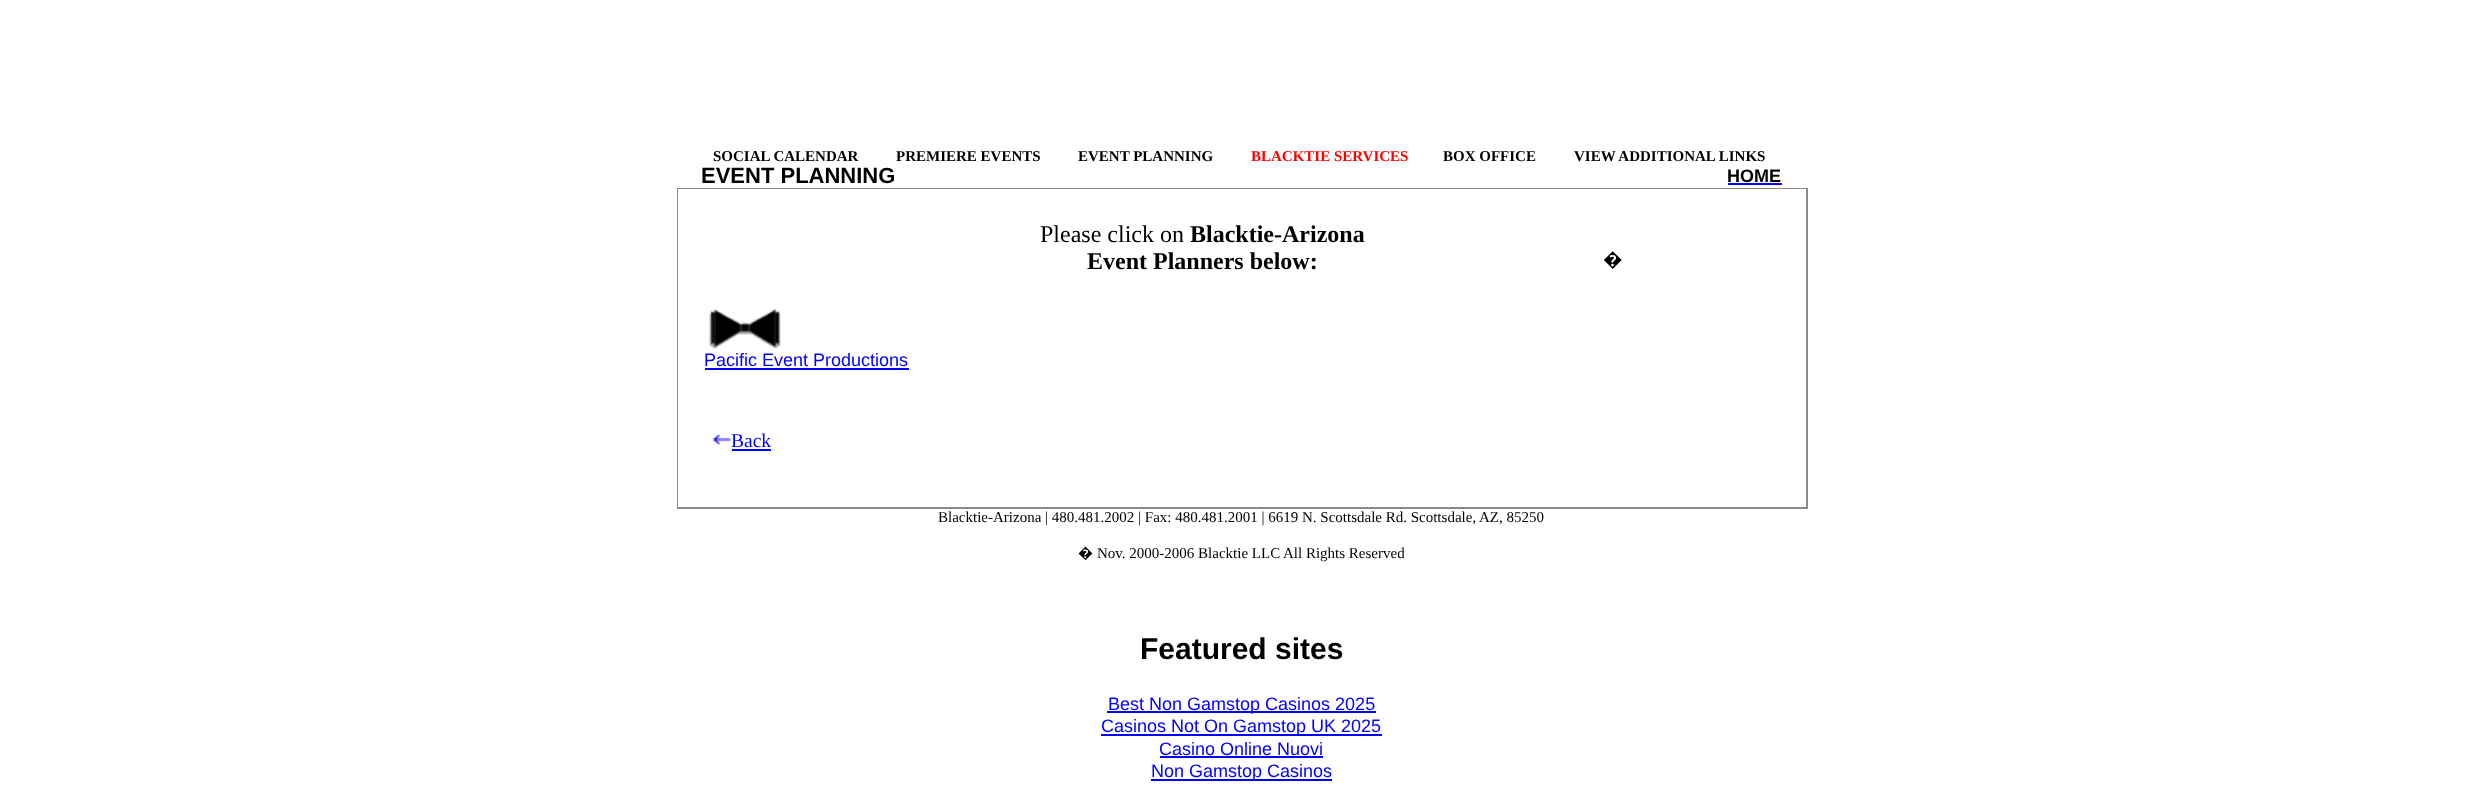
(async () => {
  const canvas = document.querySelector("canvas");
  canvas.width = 2482;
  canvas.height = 789;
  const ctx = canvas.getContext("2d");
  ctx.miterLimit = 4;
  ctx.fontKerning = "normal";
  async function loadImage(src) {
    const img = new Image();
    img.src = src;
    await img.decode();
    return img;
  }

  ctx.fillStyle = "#ffffff";
  ctx.fillRect(0, 0, 2482, 789);
  ctx.fillStyle = "#0000ff";
  ctx.fillRect(1728, 183, 54, 2);
  ctx.strokeStyle = "#8a8a8a";
  ctx.lineWidth = 2;
  ctx.strokeRect(678, 189, 1129, 319);
  ctx.fillStyle = "#ffffff";
  ctx.fillRect(678, 189, 1128, 318);
  ctx.drawImage(await loadImage("img/1.png"), 709, 309, 72, 40);
  ctx.fillStyle = "#0000ff";
  ctx.fillRect(705, 368, 204, 2);
  ctx.drawImage(await loadImage("img/2.png"), 712, 434, 19, 11);
  for (const [x, y, w, h, color] of [
    [732, 449, 39, 2, "#0000ff"],
    [1107, 711, 269, 2, "#0000ff"],
    [1101, 734, 281, 2, "#0000ff"],
    [1160, 756, 163, 2, "#0000ff"],
    [1151, 779, 181, 2, "#0000ff"],
  ]) {
    ctx.fillStyle = color;
    ctx.fillRect(x, y, w, h);
  }
  ctx.font = "bold 15px Liberation Serif";
  ctx.fillStyle = "#000000";
  for (const [text, x, y] of [
    ["SOCIAL CALENDAR", 713, 161],
    ["PREMIERE EVENTS", 896, 161],
    ["EVENT PLANNING", 1078, 161],
  ]) {
    ctx.fillText(text, x, y);
  }
  ctx.fillStyle = "#ff0000";
  ctx.fillText("BLACKTIE SERVICES", 1251, 161);
  ctx.fillStyle = "#000000";
  ctx.fillText("BOX OFFICE", 1443, 161);
  ctx.fillText("VIEW ADDITIONAL LINKS", 1574, 161);
  ctx.font = "bold 22px Liberation Sans";
  ctx.fillText("EVENT PLANNING", 701, 183);
  ctx.font = "bold 18px Liberation Sans";
  ctx.fillText("HOME", 1727, 182);
  ctx.font = "24px Liberation Serif";
  ctx.fillText("Please click on", 1040, 242);
  ctx.font = "bold 24px Liberation Serif";
  ctx.fillText("Blacktie-Arizona", 1190, 242);
  ctx.fillText("Event Planners below:", 1087, 269);
  ctx.font = "19.5px Noto Sans";
  ctx.fillText("�", 1603, 266);
  ctx.font = "18px Liberation Sans";
  ctx.fillStyle = "#0000ff";
  ctx.fillText("Pacific Event Productions", 704, 366);
  ctx.font = "19.5px Liberation Serif";
  ctx.fillText("Back", 731, 447);
  ctx.font = "15px Liberation Serif";
  ctx.fillStyle = "#000000";
  ctx.fillText("Blacktie-Arizona | 480.481.2002 | Fax: 480.481.2001 | 6619 N. Scottsdale Rd. Scottsdale, AZ, 85250", 938, 522);
  ctx.font = "15px Noto Sans";
  ctx.fillText("�", 1078, 558);
  ctx.font = "15px Liberation Serif";
  ctx.fillText("Nov. 2000-2006 Blacktie LLC", 1097, 558);
  ctx.fillText("All Rights Reserved", 1283, 558);
  ctx.font = "bold 30px Liberation Sans";
  ctx.fillText("Featured sites", 1140, 659);
  ctx.font = "18px Liberation Sans";
  ctx.fillStyle = "#0000ff";
  for (const [text, x, y] of [
    ["Best Non Gamstop Casinos 2025", 1108, 710],
    ["Casinos Not On Gamstop UK 2025", 1101, 732],
    ["Casino Online Nuovi", 1159, 755],
    ["Non Gamstop Casinos", 1151, 777],
  ]) {
    ctx.fillText(text, x, y);
  }
})();
